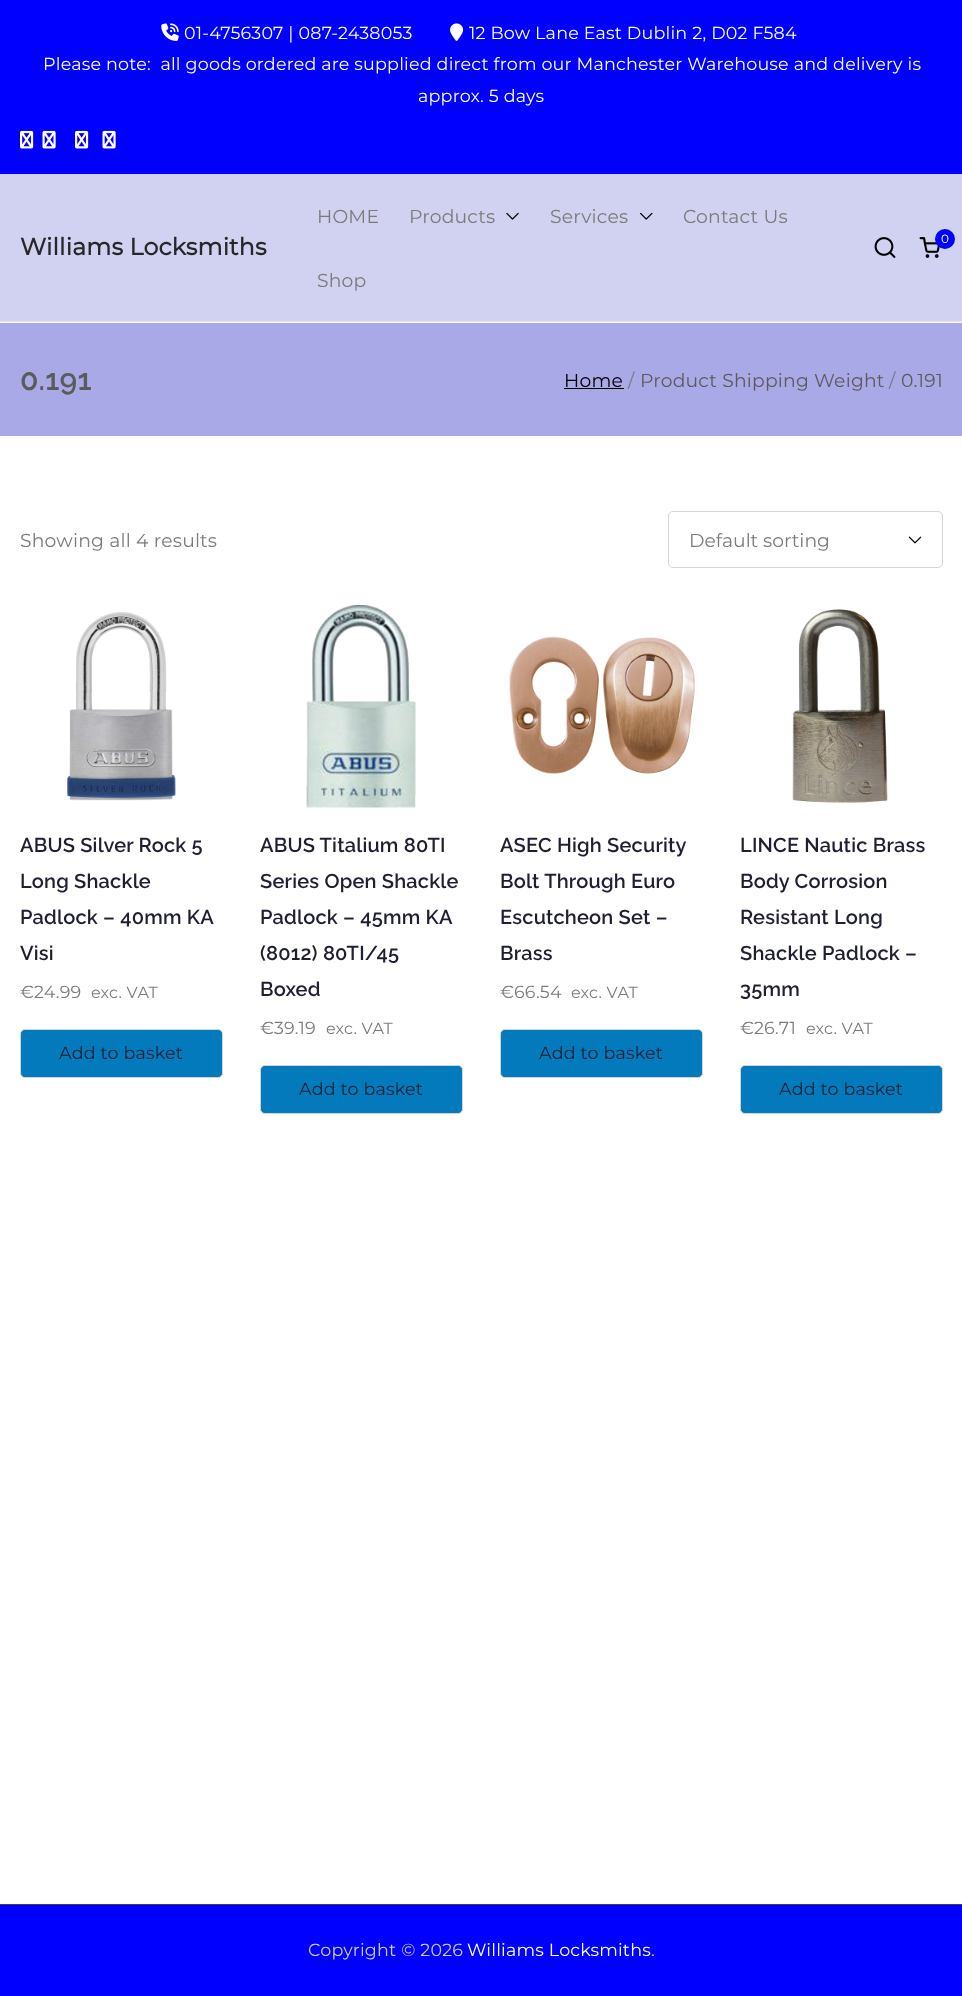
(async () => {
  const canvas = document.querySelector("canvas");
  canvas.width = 962;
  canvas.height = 1996;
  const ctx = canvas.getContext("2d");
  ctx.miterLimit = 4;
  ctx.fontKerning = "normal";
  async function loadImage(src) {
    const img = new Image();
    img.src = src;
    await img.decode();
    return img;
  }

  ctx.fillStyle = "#fafafa";
  ctx.fillRect(0, 0, 962, 1996);
  ctx.fillStyle = "#e4e4e7";
  ctx.fillRect(0, 321, 962, 1);
  ctx.fillStyle = "#0000ff";
  ctx.fillRect(0, 0, 962, 174);
  ctx.drawImage(await loadImage("img/1.png"), 161, 23, 18, 18);
  ctx.drawImage(await loadImage("img/2.png"), 450, 23, 14, 18);
  ctx.drawImage(await loadImage("img/3.png"), 20, 130, 14, 19);
  ctx.drawImage(await loadImage("img/4.png"), 42, 130, 14, 19);
  ctx.drawImage(await loadImage("img/3.png"), 75, 130, 14, 19);
  ctx.drawImage(await loadImage("img/4.png"), 102, 130, 14, 19);
  ctx.fillStyle = "#d1d1f1";
  ctx.fillRect(0, 174, 962, 147);
  ctx.drawImage(await loadImage("img/5.png"), 506, 212, 13, 8);
  ctx.drawImage(await loadImage("img/6.png"), 640, 212, 13, 8);
  ctx.drawImage(await loadImage("img/7.png"), 874, 237, 22, 21);
  ctx.drawImage(await loadImage("img/8.png"), 919, 237, 21, 21);
  ctx.fillStyle = "#0000ff";
  ctx.beginPath();
  ctx.arc(945, 239, 10, 0, Math.PI * 2);
  ctx.fill();
  for (const [x, y, w, h, color] of [
    [0, 323, 962, 113, "#a9a9e8"],
    [564, 388, 60, 1, "#000000"],
    [0, 436, 962, 1468, "#ffffff"],
  ]) {
    ctx.fillStyle = color;
    ctx.fillRect(x, y, w, h);
  }
  ctx.drawImage(await loadImage("img/9.png"), 908, 536, 14, 8);
  ctx.beginPath();
  ctx.roundRect(668.5, 511.5, 274, 56, 4.5);
  ctx.strokeStyle = "#d4d4d8";
  ctx.stroke();
  ctx.drawImage(await loadImage("img/10.png"), 67, 612, 109, 189);
  ctx.fillStyle = "#027abb";
  ctx.beginPath();
  ctx.roundRect(20.5, 1029.5, 202, 48, 4.5);
  ctx.fill();
  ctx.stroke();
  ctx.drawImage(await loadImage("img/11.png"), 306, 605, 110, 203);
  ctx.beginPath();
  ctx.roundRect(260.5, 1065.5, 202, 48, 4.5);
  ctx.fill();
  ctx.stroke();
  ctx.drawImage(await loadImage("img/12.png"), 509, 636, 186, 138);
  ctx.beginPath();
  ctx.roundRect(500.5, 1029.5, 202, 48, 4.5);
  ctx.fill();
  ctx.stroke();
  ctx.drawImage(await loadImage("img/13.png"), 792, 609, 96, 194);
  ctx.beginPath();
  ctx.roundRect(740.5, 1065.5, 202, 48, 4.5);
  ctx.fill();
  ctx.stroke();
  ctx.fillStyle = "#0000ff";
  ctx.fillRect(0, 1905, 962, 91);
  ctx.fillStyle = "#3f3f46";
  ctx.fillRect(0, 1904, 962, 1);
  ctx.letterSpacing = "0.2px";
  ctx.font = "100 17.5px Montserrat";
  ctx.fillStyle = "#ffffff";
  for (const [text, x, y] of [
    ["01-4756307 | 087-2438053", 184, 39],
    ["12 Bow Lane East Dublin 2, D02 F584", 469, 39],
    ["Please note:  all goods ordered are supplied direct from our Manchester Warehouse and delivery is", 43, 70],
    ["approx. 5 days", 418, 102],
  ]) {
    ctx.fillText(text, x, y);
  }
  ctx.font = "bold 23.6px Montserrat";
  ctx.fillStyle = "#27272a";
  ctx.fillText("Williams Locksmiths", 20, 255);
  ctx.font = "100 18.75px Montserrat";
  ctx.fillStyle = "#7b7b7b";
  for (const [text, x, y] of [
    ["HOME", 317, 223],
    ["Products", 409, 223],
    ["Services", 550, 223],
    ["Contact Us", 683, 223],
    ["Shop", 317, 287],
  ]) {
    ctx.fillText(text, x, y);
  }
  ctx.font = "100 12px Montserrat";
  ctx.fillStyle = "#ffffff";
  ctx.fillText("0", 941, 243);
  ctx.font = "100 30px Raleway";
  ctx.fillStyle = "#5b5b5b";
  ctx.fillText("0.191", 20, 390);
  ctx.font = "100 18.75px Montserrat";
  ctx.fillStyle = "#000000";
  ctx.fillText("Home", 564, 387);
  ctx.fillStyle = "#7b7b7b";
  ctx.fillText("/", 628, 387);
  ctx.fillStyle = "#5b5b5b";
  ctx.fillText("Product Shipping Weight", 640, 387);
  ctx.fillStyle = "#7b7b7b";
  ctx.fillText("/", 889, 387);
  ctx.fillStyle = "#5b5b5b";
  ctx.fillText("0.191", 901, 387);
  ctx.fillStyle = "#7b7b7b";
  ctx.fillText("Showing all 4 results", 20, 547);
  ctx.letterSpacing = "0px";
  ctx.fillText("Default sorting", 689, 547);
  ctx.letterSpacing = "0.2px";
  ctx.font = "100 20px Raleway";
  ctx.fillStyle = "#1f1f32";
  for (const [text, x, y] of [
    ["ABUS Silver Rock 5", 20, 852],
    ["Long Shackle", 20, 888],
    ["Padlock – 40mm KA", 20, 924],
    ["Visi", 20, 960],
  ]) {
    ctx.fillText(text, x, y);
  }
  ctx.font = "100 17.5px Montserrat";
  ctx.fillStyle = "#7b7b7b";
  ctx.fillText("€24.99", 20, 998);
  ctx.font = "100 16px Montserrat";
  ctx.fillText("exc. VAT", 91, 998);
  ctx.font = "100 17.5px Montserrat";
  ctx.fillStyle = "#1f1f32";
  ctx.fillText("Add to basket", 59, 1059);
  ctx.font = "100 20px Raleway";
  for (const [text, x, y] of [
    ["ABUS Titalium 80TI", 260, 852],
    ["Series Open Shackle", 260, 888],
    ["Padlock – 45mm KA", 260, 924],
    ["(8012) 80TI/45", 260, 960],
    ["Boxed", 260, 996],
  ]) {
    ctx.fillText(text, x, y);
  }
  ctx.font = "100 17.5px Montserrat";
  ctx.fillStyle = "#7b7b7b";
  ctx.fillText("€39.19", 260, 1034);
  ctx.font = "100 16px Montserrat";
  ctx.fillText("exc. VAT", 326, 1034);
  ctx.font = "100 17.5px Montserrat";
  ctx.fillStyle = "#1f1f32";
  ctx.fillText("Add to basket", 299, 1095);
  ctx.font = "100 20px Raleway";
  for (const [text, x, y] of [
    ["ASEC High Security", 500, 852],
    ["Bolt Through Euro", 500, 888],
    ["Escutcheon Set –", 500, 924],
    ["Brass", 500, 960],
  ]) {
    ctx.fillText(text, x, y);
  }
  ctx.font = "100 17.5px Montserrat";
  ctx.fillStyle = "#7b7b7b";
  ctx.fillText("€", 500, 998);
  ctx.fillText("66.54", 514, 998);
  ctx.font = "100 16px Montserrat";
  ctx.fillText("exc. VAT", 571, 998);
  ctx.font = "100 17.5px Montserrat";
  ctx.fillStyle = "#1f1f32";
  ctx.fillText("Add to basket", 539, 1059);
  ctx.font = "100 20px Raleway";
  for (const [text, x, y] of [
    ["LINCE Nautic Brass", 740, 852],
    ["Body Corrosion", 740, 888],
    ["Resistant Long", 740, 924],
    ["Shackle Padlock –", 740, 960],
    ["35mm", 740, 996],
  ]) {
    ctx.fillText(text, x, y);
  }
  ctx.font = "100 17.5px Montserrat";
  ctx.fillStyle = "#7b7b7b";
  ctx.fillText("€26.71", 740, 1034);
  ctx.font = "100 16px Montserrat";
  ctx.fillText("exc. VAT", 806, 1034);
  ctx.font = "100 17.5px Montserrat";
  ctx.fillStyle = "#1f1f32";
  ctx.fillText("Add to basket", 779, 1095);
  ctx.fillStyle = "#cccccc";
  ctx.fillText("Copyright © 2026", 308, 1956);
  ctx.fillStyle = "#ffffff";
  ctx.fillText("Williams Locksmiths", 467, 1956);
  ctx.fillStyle = "#cccccc";
  ctx.fillText(".", 651, 1956);
})();
